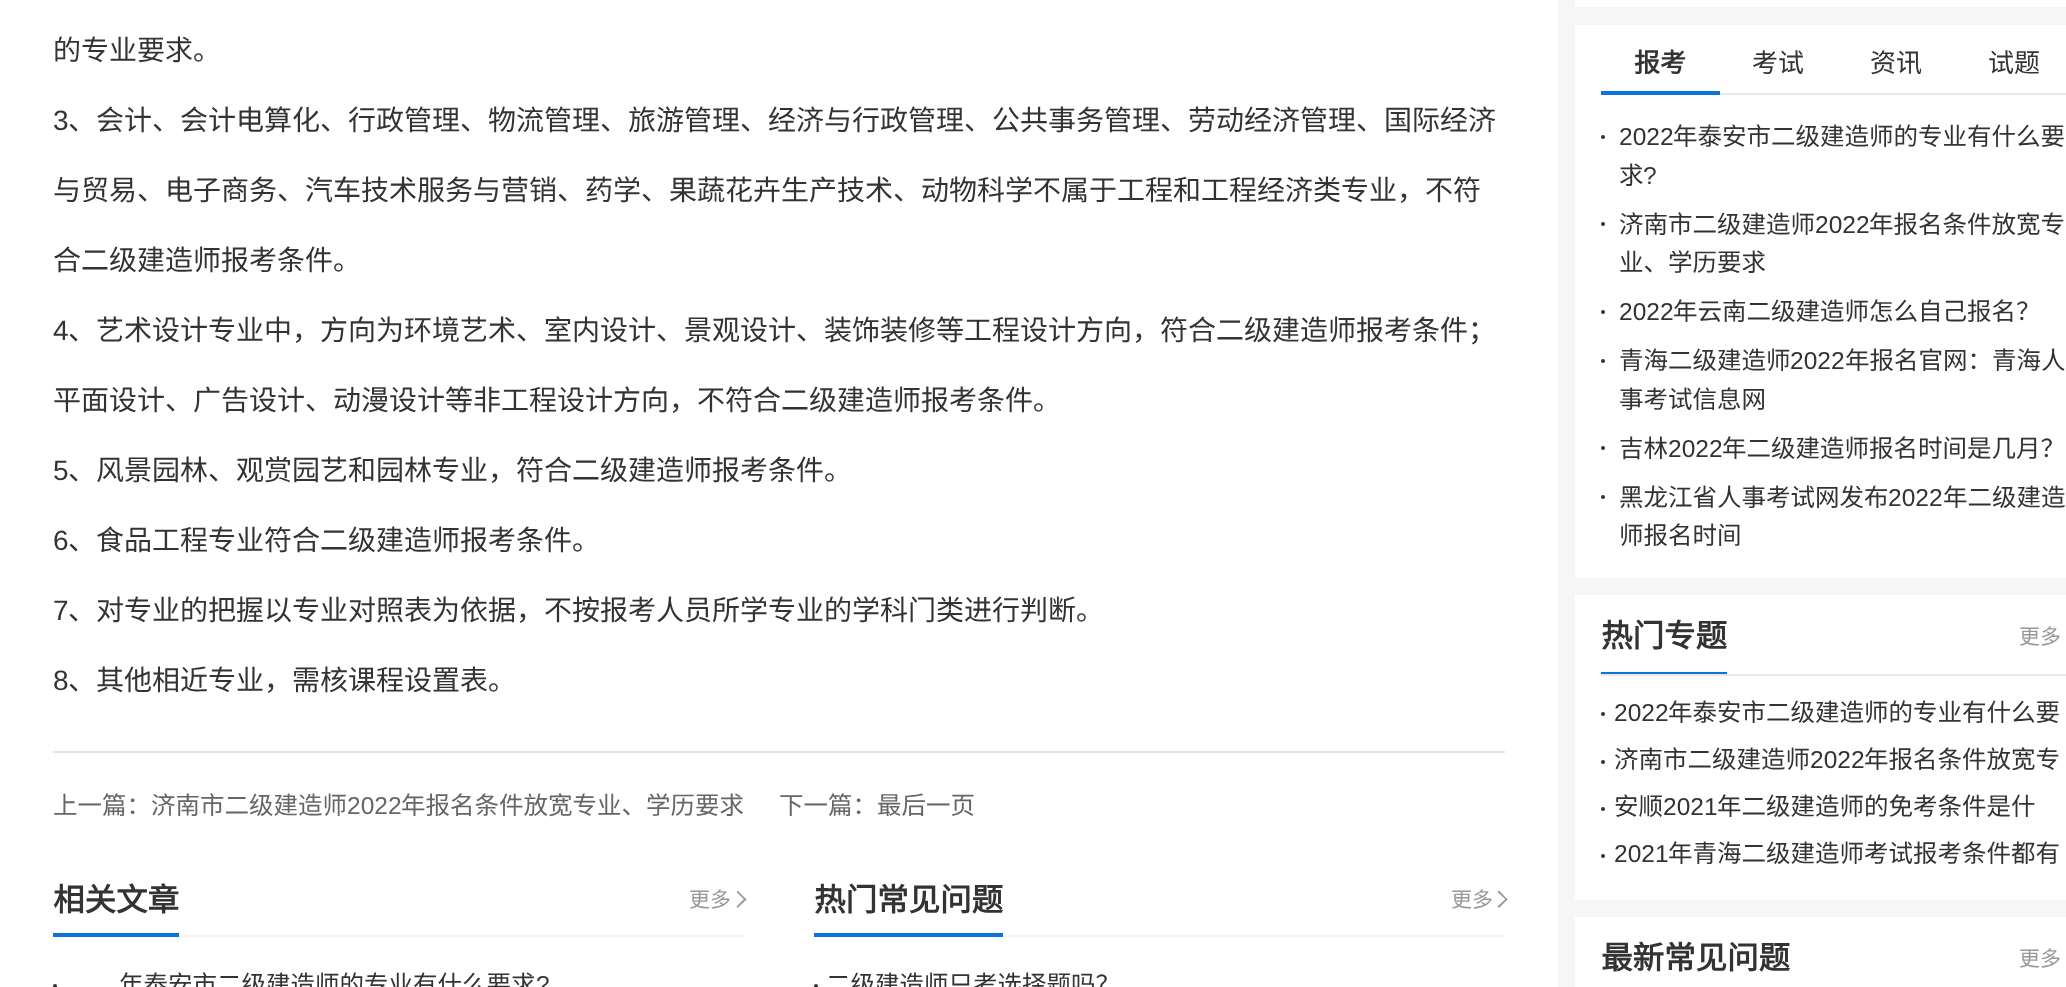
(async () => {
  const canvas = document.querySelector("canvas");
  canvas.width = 2066;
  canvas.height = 987;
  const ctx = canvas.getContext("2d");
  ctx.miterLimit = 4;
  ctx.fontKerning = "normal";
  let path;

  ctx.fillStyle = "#f6f6f6";
  ctx.fillRect(0, 0, 2066, 987);
  for (const [x, y, w, h, color] of [
    [0, 0, 1558, 987, "#ffffff"],
    [53, 751, 1452, 2, "#e5e5e5"],
    [179, 935, 565, 2, "#f4f4f4"],
    [53, 933, 126, 4, "#0c74d9"],
  ]) {
    ctx.fillStyle = color;
    ctx.fillRect(x, y, w, h);
  }
  ctx.fillStyle = "#999999";
  path = new Path2D("M737.5 890.5L746.5 899.5L745 900.5L736.5 892Z");
  ctx.fill(path);
  path = new Path2D("M745 898L746.5 899.5L737.5 908L736.5 906.5Z");
  ctx.fill(path);
  ctx.fillStyle = "#333333";
  ctx.beginPath();
  ctx.arc(55, 986, 2, 0, Math.PI * 2);
  ctx.fill();
  ctx.fillStyle = "#f4f4f4";
  ctx.fillRect(1003, 935, 502, 2);
  ctx.fillStyle = "#0c74d9";
  ctx.fillRect(814, 933, 189, 4);
  ctx.fillStyle = "#999999";
  path = new Path2D("M1499 890.5L1507.5 899.5L1506.5 900.5L1497.5 892Z");
  ctx.fill(path);
  path = new Path2D("M1506.5 898L1507.5 899.5L1499 908L1497.5 906.5Z");
  ctx.fill(path);
  ctx.fillStyle = "#333333";
  ctx.beginPath();
  ctx.arc(816, 986, 2, 0, Math.PI * 2);
  ctx.fill();
  for (const [x, y, w, h, color] of [
    [1575, 0, 491, 7, "#ffffff"],
    [1575, 25, 491, 553, "#ffffff"],
    [1720, 93, 346, 2, "#e8e8e8"],
    [1601, 91, 119, 4, "#0c74d9"],
  ]) {
    ctx.fillStyle = color;
    ctx.fillRect(x, y, w, h);
  }
  ctx.fillStyle = "#333333";
  ctx.beginPath();
  ctx.arc(1603, 137, 2, 0, Math.PI * 2);
  ctx.fill();
  ctx.beginPath();
  ctx.arc(1603, 224, 2, 0, Math.PI * 2);
  ctx.fill();
  ctx.beginPath();
  ctx.arc(1603, 312, 2, 0, Math.PI * 2);
  ctx.fill();
  ctx.beginPath();
  ctx.arc(1603, 361, 2, 0, Math.PI * 2);
  ctx.fill();
  ctx.beginPath();
  ctx.arc(1603, 448, 2, 0, Math.PI * 2);
  ctx.fill();
  ctx.beginPath();
  ctx.arc(1603, 497, 2, 0, Math.PI * 2);
  ctx.fill();
  for (const [x, y, w, h, color] of [
    [1575, 595, 491, 305, "#ffffff"],
    [1601, 674, 465, 2, "#e8e8e8"],
    [1601, 672, 126, 2, "#0c74d9"],
  ]) {
    ctx.fillStyle = color;
    ctx.fillRect(x, y, w, h);
  }
  ctx.fillStyle = "#333333";
  ctx.beginPath();
  ctx.arc(1603, 714, 2, 0, Math.PI * 2);
  ctx.fill();
  ctx.beginPath();
  ctx.arc(1603, 762, 2, 0, Math.PI * 2);
  ctx.fill();
  ctx.beginPath();
  ctx.arc(1603, 809, 2, 0, Math.PI * 2);
  ctx.fill();
  ctx.beginPath();
  ctx.arc(1603, 856, 2, 0, Math.PI * 2);
  ctx.fill();
  ctx.fillStyle = "#ffffff";
  ctx.fillRect(1575, 917, 491, 70);
  ctx.font = "28px Noto Sans CJK SC";
  ctx.fillStyle = "#333333";
  ctx.fillText("的专业要求。", 53, 60);
  ctx.font = "28px Liberation Sans";
  ctx.fillText("3", 53, 130);
  ctx.font = "28px Noto Sans CJK SC";
  for (const [text, x, y] of [
    ["、会计、会计电算化、行政管理、物流管理、旅游管理、经济与行政管理、公共事务管理、劳动经济管理、国际经济", 68, 130],
    ["与贸易、电子商务、汽车技术服务与营销、药学、果蔬花卉生产技术、动物科学不属于工程和工程经济类专业，不符", 53, 200],
    ["合二级建造师报考条件。", 53, 270],
  ]) {
    ctx.fillText(text, x, y);
  }
  ctx.font = "28px Liberation Sans";
  ctx.fillText("4", 53, 340);
  ctx.font = "28px Noto Sans CJK SC";
  ctx.fillText("、艺术设计专业中，方向为环境艺术、室内设计、景观设计、装饰装修等工程设计方向，符合二级建造师报考条件；", 68, 340);
  ctx.fillText("平面设计、广告设计、动漫设计等非工程设计方向，不符合二级建造师报考条件。", 53, 410);
  ctx.font = "28px Liberation Sans";
  ctx.fillText("5", 53, 480);
  ctx.font = "28px Noto Sans CJK SC";
  ctx.fillText("、风景园林、观赏园艺和园林专业，符合二级建造师报考条件。", 68, 480);
  ctx.font = "28px Liberation Sans";
  ctx.fillText("6", 53, 550);
  ctx.font = "28px Noto Sans CJK SC";
  ctx.fillText("、食品工程专业符合二级建造师报考条件。", 68, 550);
  ctx.font = "28px Liberation Sans";
  ctx.fillText("7", 53, 620);
  ctx.font = "28px Noto Sans CJK SC";
  ctx.fillText("、对专业的把握以专业对照表为依据，不按报考人员所学专业的学科门类进行判断。", 68, 620);
  ctx.font = "28px Liberation Sans";
  ctx.fillText("8", 53, 690);
  ctx.font = "28px Noto Sans CJK SC";
  ctx.fillText("、其他相近专业，需核课程设置表。", 68, 690);
  ctx.font = "24.5px Noto Sans CJK SC";
  ctx.fillStyle = "#666666";
  ctx.fillText("上一篇：济南市二级建造师", 53, 814);
  ctx.font = "24.5px Liberation Sans";
  ctx.fillText("2022", 347, 814);
  ctx.font = "24.5px Noto Sans CJK SC";
  ctx.fillText("年报名条件放宽专业、学历要求", 401, 814);
  ctx.fillText("下一篇：最后一页", 779, 814);
  ctx.font = "bold 31.5px Noto Sans CJK SC";
  ctx.fillStyle = "#333333";
  ctx.fillText("相关文章", 53, 911);
  ctx.font = "21px Noto Sans CJK SC";
  ctx.fillStyle = "#999999";
  ctx.fillText("更多", 689, 907);
  ctx.font = "24.5px Noto Sans CJK SC";
  ctx.fillStyle = "#333333";
  ctx.fillText("年泰安市二级建造师的专业有什么要求", 119, 993);
  ctx.font = "24.5px Liberation Sans";
  ctx.fillText("?", 536, 993);
  ctx.font = "bold 31.5px Noto Sans CJK SC";
  ctx.fillText("热门常见问题", 814, 911);
  ctx.font = "21px Noto Sans CJK SC";
  ctx.fillStyle = "#999999";
  ctx.fillText("更多", 1451, 907);
  ctx.font = "24.5px Noto Sans CJK SC";
  ctx.fillStyle = "#333333";
  ctx.fillText("二级建造师只考选择题吗？", 826, 993);
  ctx.font = "bold 26px Noto Sans CJK SC";
  ctx.fillText("报考", 1634, 72);
  ctx.font = "26px Noto Sans CJK SC";
  for (const [text, x, y] of [
    ["考试", 1752, 72],
    ["资讯", 1870, 72],
    ["试题", 1988, 72],
  ]) {
    ctx.fillText(text, x, y);
  }
  ctx.font = "24.5px Liberation Sans";
  ctx.fillText("2022", 1619, 145);
  ctx.font = "24.5px Noto Sans CJK SC";
  ctx.fillText("年泰安市二级建造师的专业有什么要", 1673, 145);
  ctx.fillText("求", 1619, 184);
  ctx.font = "24.5px Liberation Sans";
  ctx.fillText("?", 1643, 184);
  ctx.font = "24.5px Noto Sans CJK SC";
  ctx.fillText("济南市二级建造师", 1619, 233);
  ctx.font = "24.5px Liberation Sans";
  ctx.fillText("2022", 1815, 233);
  ctx.font = "24.5px Noto Sans CJK SC";
  ctx.fillText("年报名条件放宽专", 1869, 233);
  ctx.fillText("业、学历要求", 1619, 271);
  ctx.font = "24.5px Liberation Sans";
  ctx.fillText("2022", 1619, 320);
  ctx.font = "24.5px Noto Sans CJK SC";
  ctx.fillText("年云南二级建造师怎么自己报名？", 1673, 320);
  ctx.fillText("青海二级建造师", 1619, 369);
  ctx.font = "24.5px Liberation Sans";
  ctx.fillText("2022", 1790, 369);
  ctx.font = "24.5px Noto Sans CJK SC";
  for (const [text, x, y] of [
    ["年报名官网：青海人", 1845, 369],
    ["事考试信息网", 1619, 408],
    ["吉林", 1619, 457],
  ]) {
    ctx.fillText(text, x, y);
  }
  ctx.font = "24.5px Liberation Sans";
  ctx.fillText("2022", 1668, 457);
  ctx.font = "24.5px Noto Sans CJK SC";
  ctx.fillText("年二级建造师报名时间是几月？", 1722, 457);
  ctx.fillText("黑龙江省人事考试网发布", 1619, 506);
  ctx.font = "24.5px Liberation Sans";
  ctx.fillText("2022", 1888, 506);
  ctx.font = "24.5px Noto Sans CJK SC";
  ctx.fillText("年二级建造", 1943, 506);
  ctx.fillText("师报名时间", 1619, 544);
  ctx.font = "bold 31.5px Noto Sans CJK SC";
  ctx.fillText("热门专题", 1601, 647);
  ctx.font = "21px Noto Sans CJK SC";
  ctx.fillStyle = "#999999";
  ctx.fillText("更多", 2019, 644);
  ctx.font = "24.5px Liberation Sans";
  ctx.fillStyle = "#333333";
  ctx.fillText("2022", 1614, 721);
  ctx.font = "24.5px Noto Sans CJK SC";
  ctx.fillText("年泰安市二级建造师的专业有什么要", 1668, 721);
  ctx.fillText("济南市二级建造师", 1614, 768);
  ctx.font = "24.5px Liberation Sans";
  ctx.fillText("2022", 1810, 768);
  ctx.font = "24.5px Noto Sans CJK SC";
  ctx.fillText("年报名条件放宽专", 1864, 768);
  ctx.fillText("安顺", 1614, 815);
  ctx.font = "24.5px Liberation Sans";
  ctx.fillText("2021", 1663, 815);
  ctx.font = "24.5px Noto Sans CJK SC";
  ctx.fillText("年二级建造师的免考条件是什", 1717, 815);
  ctx.font = "24.5px Liberation Sans";
  ctx.fillText("2021", 1614, 862);
  ctx.font = "24.5px Noto Sans CJK SC";
  ctx.fillText("年青海二级建造师考试报考条件都有", 1668, 862);
  ctx.font = "bold 31.5px Noto Sans CJK SC";
  ctx.fillText("最新常见问题", 1601, 969);
  ctx.font = "21px Noto Sans CJK SC";
  ctx.fillStyle = "#999999";
  ctx.fillText("更多", 2019, 966);
})();
